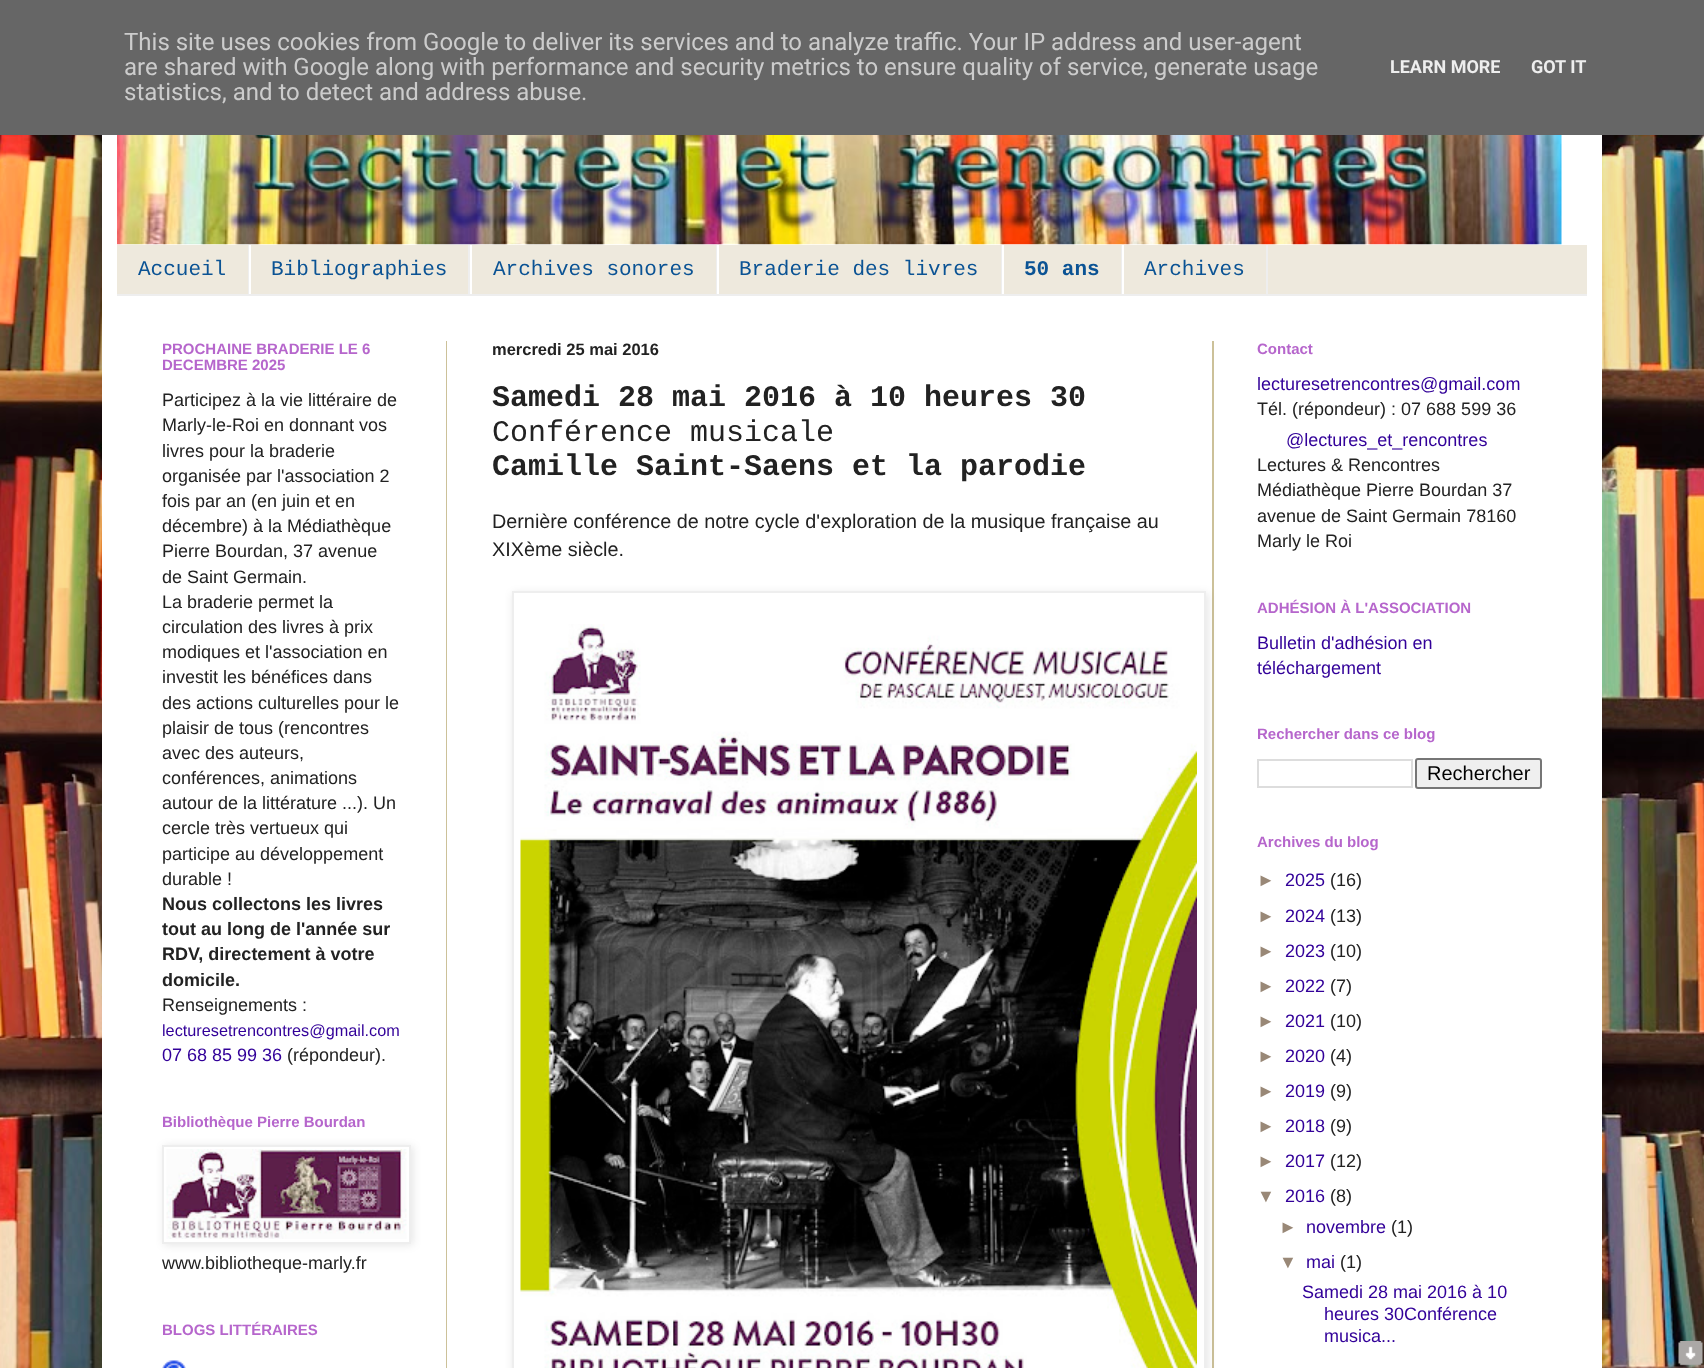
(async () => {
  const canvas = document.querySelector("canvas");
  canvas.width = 1704;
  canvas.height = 1368;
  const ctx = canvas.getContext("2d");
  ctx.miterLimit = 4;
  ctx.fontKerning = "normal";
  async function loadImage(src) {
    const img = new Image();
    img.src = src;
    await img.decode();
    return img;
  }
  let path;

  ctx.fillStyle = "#ffffff";
  ctx.fillRect(0, 0, 1704, 1368);
  ctx.drawImage(await loadImage("img/1.png"), 0, 135, 1704, 1233);
  ctx.fillStyle = "rgba(0, 0, 0, 0.15)";
  ctx.filter = "blur(30px)";
  ctx.beginPath();
  ctx.rect(102, 45, 1500, 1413);
  ctx.fill();
  ctx.filter = "none";
  ctx.fillStyle = "#666666";
  ctx.fillRect(0, 0, 1704, 135);
  ctx.fillStyle = "#ffffff";
  ctx.fillRect(102, 135, 1500, 1233);
  ctx.drawImage(await loadImage("img/2.png"), 117, 135, 1445, 110);
  for (const [x, y, w, h, color] of [
    [117, 245, 1470, 49, "#eee9dd"],
    [117, 294, 1470, 2, "#eeeeee"],
    [248, 245, 1, 49, "#eeeeee"],
    [468, 245, 2, 49, "#eeeeee"],
    [249, 245, 2, 49, "#ffffff"],
    [716, 245, 1, 49, "#eeeeee"],
    [470, 245, 2, 49, "#ffffff"],
    [1001, 245, 1, 49, "#eeeeee"],
    [717, 245, 2, 49, "#ffffff"],
    [1121, 245, 1, 49, "#eeeeee"],
    [1002, 245, 2, 49, "#ffffff"],
    [1266, 245, 2, 49, "#eeeeee"],
    [1122, 245, 2, 49, "#ffffff"],
    [446, 341, 1, 1027, "#ccc199"],
    [1212, 341, 2, 1027, "#ccc199"],
  ]) {
    ctx.fillStyle = color;
    ctx.fillRect(x, y, w, h);
  }
  ctx.fillStyle = "rgba(0, 0, 0, 0.1)";
  ctx.filter = "blur(4px)";
  ctx.beginPath();
  ctx.rect(164, 1146, 249, 99);
  ctx.fill();
  ctx.filter = "none";
  ctx.fillStyle = "#ffffff";
  ctx.beginPath();
  ctx.rect(163, 1146, 247, 97);
  ctx.fill();
  ctx.strokeStyle = "#eeeeee";
  ctx.lineWidth = 2;
  ctx.stroke();
  ctx.drawImage(await loadImage("img/3.png"), 166, 1149, 241, 90);
  ctx.drawImage(await loadImage("img/4.png"), 162, 1360, 24, 8);
  ctx.save();
  path = new Path2D("M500 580H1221V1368H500ZM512 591H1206V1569H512Z");
  ctx.clip(path, "evenodd");
  ctx.fillStyle = "rgba(0, 0, 0, 0.1)";
  ctx.filter = "blur(4px)";
  ctx.beginPath();
  ctx.rect(513, 593, 695, 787);
  ctx.fill();
  ctx.filter = "none";
  ctx.restore();
  ctx.strokeRect(513, 592, 692, 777);
  ctx.drawImage(await loadImage("img/5.png"), 520, 624, 677, 744);
  ctx.strokeStyle = "#dddddd";
  ctx.strokeRect(1258, 760, 154, 27);
  ctx.fillStyle = "#efefef";
  ctx.beginPath();
  ctx.roundRect(1416, 759, 125, 29, 2);
  ctx.fill();
  ctx.strokeStyle = "#767676";
  ctx.stroke();
  ctx.drawImage(await loadImage("img/6.png"), 1678, 1341, 25, 25);
  ctx.font = "24px Roboto";
  ctx.fillStyle = "#cccccc";
  for (const [text, x, y] of [
    ["This site uses cookies from Google to deliver its services and to analyze traffic. Your IP address and user-agent", 124, 50],
    ["are shared with Google along with performance and security metrics to ensure quality of service, generate usage", 124, 75],
    ["statistics, and to detect and address abuse.", 124, 100],
  ]) {
    ctx.fillText(text, x, y);
  }
  ctx.font = "bold 18px Roboto";
  ctx.fillStyle = "#eeeeee";
  ctx.fillText("LEARN MORE", 1390, 73);
  ctx.fillText("GOT IT", 1531, 73);
  ctx.font = "21px Liberation Mono";
  ctx.fillStyle = "#0b5394";
  for (const [text, x, y] of [
    ["Accueil", 138, 275],
    ["Bibliographies", 271, 275],
    ["Archives sonores", 493, 275],
    ["Braderie des livres", 739, 275],
  ]) {
    ctx.fillText(text, x, y);
  }
  ctx.font = "bold 21px Liberation Mono";
  ctx.fillText("50 ans", 1024, 275);
  ctx.font = "21px Liberation Mono";
  ctx.fillText("Archives", 1144, 275);
  ctx.font = "bold 15px Liberation Sans";
  ctx.fillStyle = "#b666cc";
  ctx.fillText("PROCHAINE BRADERIE LE 6", 162, 354);
  ctx.fillText("DECEMBRE 2025", 162, 370);
  ctx.font = "18px Liberation Sans";
  ctx.fillStyle = "#222222";
  for (const [text, x, y] of [
    ["Participez à la vie littéraire de", 162, 406],
    ["Marly-le-Roi en donnant vos", 162, 431],
    ["livres pour la braderie", 162, 457],
    ["organisée par l'association 2", 162, 482],
    ["fois par an (en juin et en", 162, 507],
    ["décembre) à la Médiathèque", 162, 532],
    ["Pierre Bourdan, 37 avenue", 162, 557],
    ["de Saint Germain.", 162, 583],
    ["La braderie permet la", 162, 608],
    ["circulation des livres à prix", 162, 633],
    ["modiques et l'association en", 162, 658],
    ["investit les bénéfices dans", 162, 683],
    ["des actions culturelles pour le", 162, 709],
    ["plaisir de tous (rencontres", 162, 734],
    ["avec des auteurs,", 162, 759],
    ["conférences, animations", 162, 784],
    ["autour de la littérature ...). Un", 162, 809],
    ["cercle très vertueux qui", 162, 834],
    ["participe au développement", 162, 860],
    ["durable !", 162, 885],
  ]) {
    ctx.fillText(text, x, y);
  }
  ctx.font = "bold 18px Liberation Sans";
  for (const [text, x, y] of [
    ["Nous collectons les livres", 162, 910],
    ["tout au long de l'année sur", 162, 935],
    ["RDV, directement à votre", 162, 960],
    ["domicile.", 162, 986],
  ]) {
    ctx.fillText(text, x, y);
  }
  ctx.font = "18px Liberation Sans";
  ctx.fillText("Renseignements :", 162, 1011);
  ctx.font = "16.25px Liberation Sans";
  ctx.fillStyle = "#320099";
  ctx.fillText("lecturesetrencontres@gmail.com", 162, 1036);
  ctx.font = "18px Liberation Sans";
  ctx.fillText("07 68 85 99 36", 162, 1061);
  ctx.fillStyle = "#222222";
  ctx.fillText("(répondeur).", 287, 1061);
  ctx.font = "bold 15px Liberation Sans";
  ctx.fillStyle = "#b666cc";
  ctx.fillText("Bibliothèque Pierre Bourdan", 162, 1127);
  ctx.font = "18px Liberation Sans";
  ctx.fillStyle = "#222222";
  ctx.fillText("www.bibliotheque-marly.fr", 162, 1269);
  ctx.font = "bold 15px Liberation Sans";
  ctx.fillStyle = "#b666cc";
  ctx.fillText("BLOGS LITTÉRAIRES", 162, 1335);
  ctx.font = "bold 16.5px Liberation Sans";
  ctx.fillStyle = "#222222";
  ctx.fillText("mercredi 25 mai 2016", 492, 355);
  ctx.font = "bold 30px Liberation Mono";
  ctx.fillText("Samedi 28 mai 2016 à 10 heures 30", 492, 406);
  ctx.font = "30px Liberation Mono";
  ctx.fillText("Conférence musicale", 492, 441);
  ctx.font = "bold 30px Liberation Mono";
  ctx.fillText("Camille Saint-Saens et la parodie", 492, 475);
  ctx.font = "19.8px Liberation Sans";
  ctx.fillText("Dernière conférence de notre cycle d'exploration de la musique française au", 492, 528);
  ctx.fillText("XIXème siècle.", 492, 556);
  ctx.font = "bold 15px Liberation Sans";
  ctx.fillStyle = "#b666cc";
  ctx.fillText("Contact", 1257, 354);
  ctx.font = "18px Liberation Sans";
  ctx.fillStyle = "#320099";
  ctx.fillText("lecturesetrencontres@gmail.com", 1257, 390);
  ctx.fillStyle = "#222222";
  ctx.fillText("Tél. (répondeur) : 07 688 599 36", 1257, 415);
  ctx.fillStyle = "#320099";
  ctx.fillText("@lectures_et_rencontres", 1286, 446);
  ctx.fillStyle = "#222222";
  for (const [text, x, y] of [
    ["Lectures & Rencontres", 1257, 471],
    ["Médiathèque Pierre Bourdan 37", 1257, 496],
    ["avenue de Saint Germain 78160", 1257, 522],
    ["Marly le Roi", 1257, 547],
  ]) {
    ctx.fillText(text, x, y);
  }
  ctx.font = "bold 15px Liberation Sans";
  ctx.fillStyle = "#b666cc";
  ctx.fillText("ADHÉSION À L'ASSOCIATION", 1257, 613);
  ctx.font = "18px Liberation Sans";
  ctx.fillStyle = "#320099";
  ctx.fillText("Bulletin d'adhésion en", 1257, 649);
  ctx.fillText("téléchargement", 1257, 674);
  ctx.font = "bold 15px Liberation Sans";
  ctx.fillStyle = "#b666cc";
  ctx.fillText("Rechercher dans ce blog", 1257, 739);
  ctx.font = "20px Liberation Sans";
  ctx.fillStyle = "#000000";
  ctx.fillText("Rechercher", 1427, 780);
  ctx.font = "bold 15px Liberation Sans";
  ctx.fillStyle = "#b666cc";
  ctx.fillText("Archives du blog", 1257, 847);
  ctx.font = "18px Liberation Sans";
  ctx.fillStyle = "#998877";
  ctx.fillText("►", 1257, 886);
  ctx.fillStyle = "#320099";
  ctx.fillText("2025", 1285, 886);
  ctx.fillStyle = "#222222";
  ctx.fillText("(16)", 1330, 886);
  ctx.fillStyle = "#998877";
  ctx.fillText("►", 1257, 922);
  ctx.fillStyle = "#320099";
  ctx.fillText("2024", 1285, 922);
  ctx.fillStyle = "#222222";
  ctx.fillText("(13)", 1330, 922);
  ctx.fillStyle = "#998877";
  ctx.fillText("►", 1257, 957);
  ctx.fillStyle = "#320099";
  ctx.fillText("2023", 1285, 957);
  ctx.fillStyle = "#222222";
  ctx.fillText("(10)", 1330, 957);
  ctx.fillStyle = "#998877";
  ctx.fillText("►", 1257, 992);
  ctx.fillStyle = "#320099";
  ctx.fillText("2022", 1285, 992);
  ctx.fillStyle = "#222222";
  ctx.fillText("(7)", 1330, 992);
  ctx.fillStyle = "#998877";
  ctx.fillText("►", 1257, 1027);
  ctx.fillStyle = "#320099";
  ctx.fillText("2021", 1285, 1027);
  ctx.fillStyle = "#222222";
  ctx.fillText("(10)", 1330, 1027);
  ctx.fillStyle = "#998877";
  ctx.fillText("►", 1257, 1062);
  ctx.fillStyle = "#320099";
  ctx.fillText("2020", 1285, 1062);
  ctx.fillStyle = "#222222";
  ctx.fillText("(4)", 1330, 1062);
  ctx.fillStyle = "#998877";
  ctx.fillText("►", 1257, 1097);
  ctx.fillStyle = "#320099";
  ctx.fillText("2019", 1285, 1097);
  ctx.fillStyle = "#222222";
  ctx.fillText("(9)", 1330, 1097);
  ctx.fillStyle = "#998877";
  ctx.fillText("►", 1257, 1132);
  ctx.fillStyle = "#320099";
  ctx.fillText("2018", 1285, 1132);
  ctx.fillStyle = "#222222";
  ctx.fillText("(9)", 1330, 1132);
  ctx.fillStyle = "#998877";
  ctx.fillText("►", 1257, 1167);
  ctx.fillStyle = "#320099";
  ctx.fillText("2017", 1285, 1167);
  ctx.fillStyle = "#222222";
  ctx.fillText("(12)", 1330, 1167);
  ctx.fillStyle = "#998877";
  ctx.fillText("▼", 1257, 1202);
  ctx.fillStyle = "#320099";
  ctx.fillText("2016", 1285, 1202);
  ctx.fillStyle = "#222222";
  ctx.fillText("(8)", 1330, 1202);
  ctx.fillStyle = "#998877";
  ctx.fillText("►", 1279, 1233);
  ctx.fillStyle = "#320099";
  ctx.fillText("novembre", 1306, 1233);
  ctx.fillStyle = "#222222";
  ctx.fillText("(1)", 1391, 1233);
  ctx.fillStyle = "#998877";
  ctx.fillText("▼", 1279, 1268);
  ctx.fillStyle = "#320099";
  ctx.fillText("mai", 1306, 1268);
  ctx.fillStyle = "#222222";
  ctx.fillText("(1)", 1340, 1268);
  ctx.fillStyle = "#320099";
  for (const [text, x, y] of [
    ["Samedi 28 mai 2016 à 10", 1302, 1298],
    ["heures 30Conférence", 1324, 1320],
    ["musica...", 1324, 1342],
  ]) {
    ctx.fillText(text, x, y);
  }
})();
